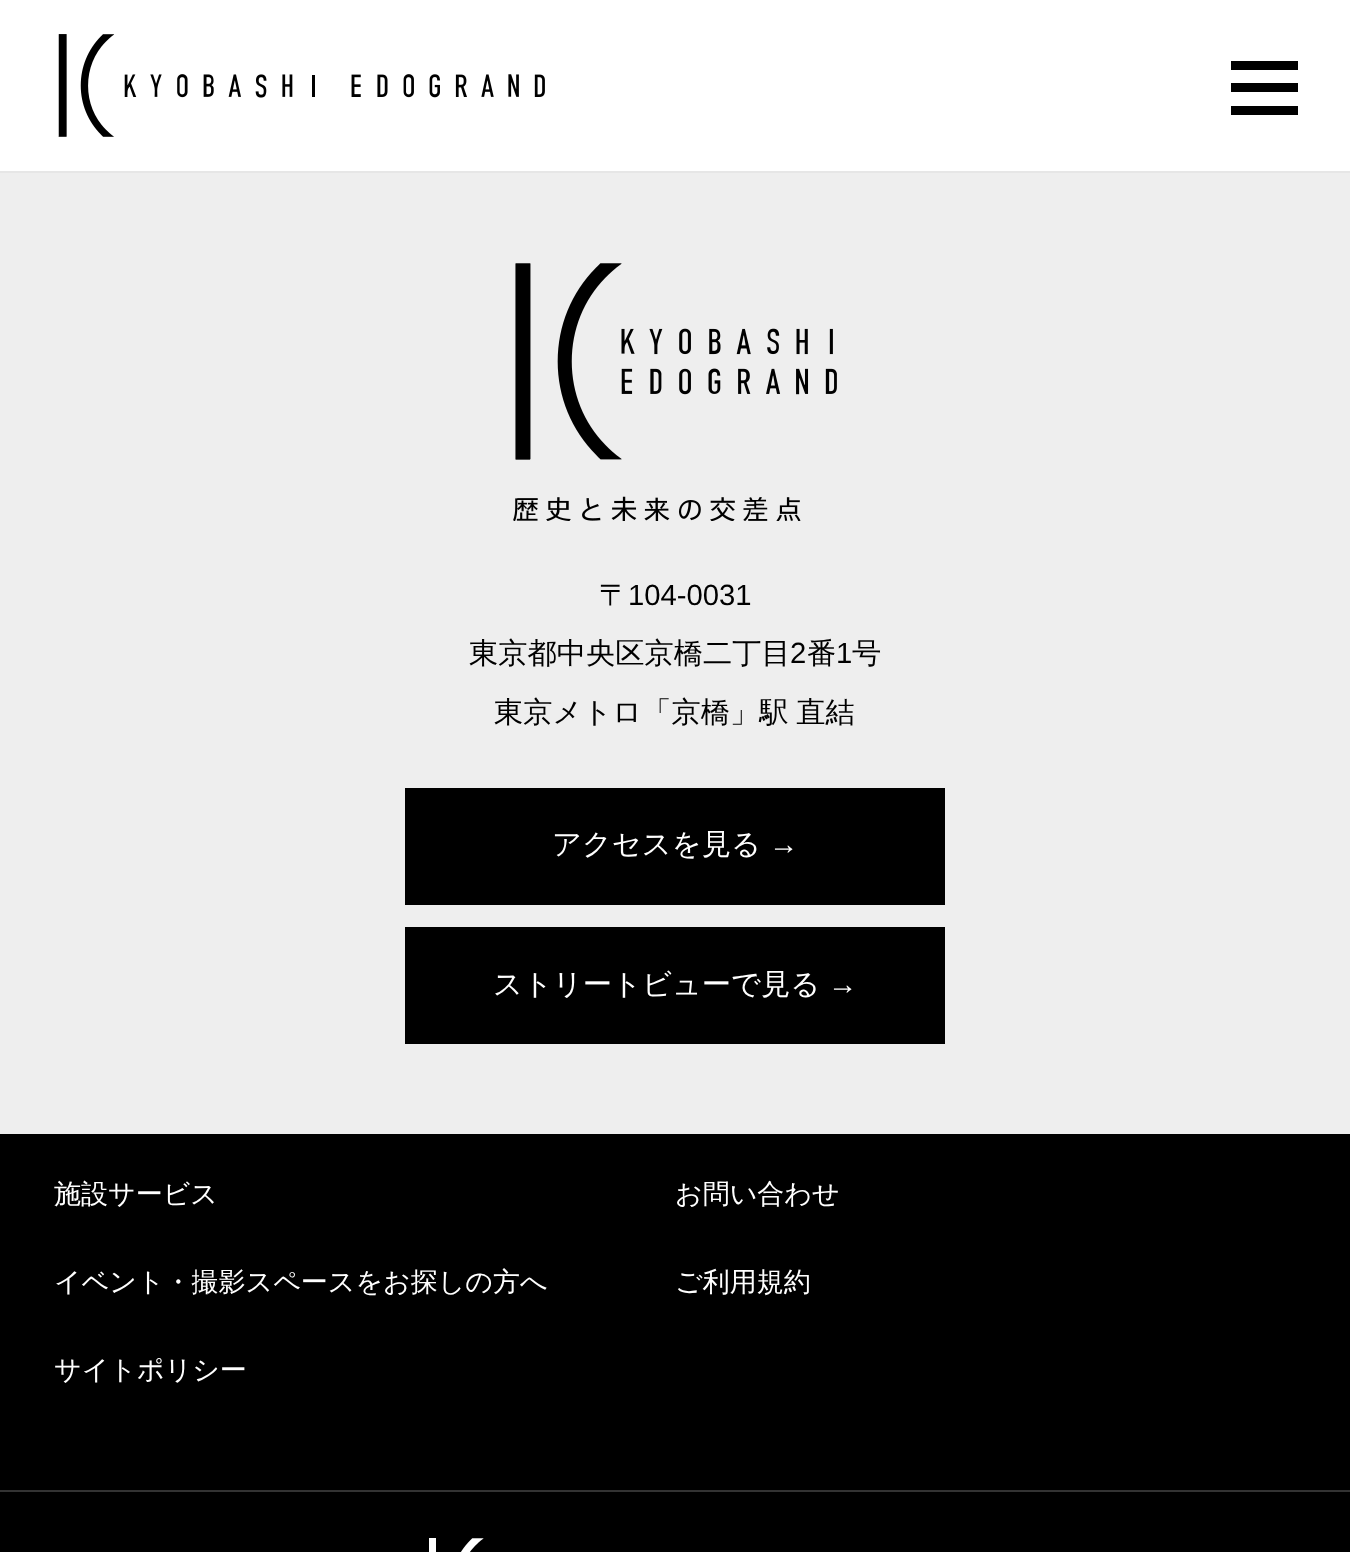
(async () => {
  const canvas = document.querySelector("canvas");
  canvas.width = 1350;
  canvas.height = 1552;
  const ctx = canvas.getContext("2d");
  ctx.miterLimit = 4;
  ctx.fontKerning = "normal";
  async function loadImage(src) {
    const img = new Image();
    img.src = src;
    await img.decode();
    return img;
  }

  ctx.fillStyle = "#ffffff";
  ctx.fillRect(0, 0, 1350, 1552);
  ctx.fillStyle = "#e6e6e6";
  ctx.fillRect(0, 171, 1350, 2);
  ctx.drawImage(await loadImage("img/1.png"), 58, 34, 487, 103);
  for (const [x, y, w, h, color] of [
    [1231, 61, 67, 9, "#000000"],
    [1231, 83, 67, 9, "#000000"],
    [1231, 106, 67, 9, "#000000"],
    [0, 173, 1350, 961, "#eeeeee"],
  ]) {
    ctx.fillStyle = color;
    ctx.fillRect(x, y, w, h);
  }
  ctx.drawImage(await loadImage("img/2.png"), 513, 263, 324, 258);
  for (const [x, y, w, h, color] of [
    [405, 788, 540, 117, "#000000"],
    [405, 927, 540, 117, "#000000"],
    [0, 1134, 1350, 418, "#000000"],
    [0, 1490, 1350, 2, "#333333"],
  ]) {
    ctx.fillStyle = color;
    ctx.fillRect(x, y, w, h);
  }
  ctx.drawImage(await loadImage("img/3.png"), 429, 1538, 55, 14);
  ctx.font = "500 29.25px WenQuanYi Zen Hei";
  ctx.fillStyle = "#000000";
  ctx.fillText("〒", 599, 605);
  ctx.font = "29.25px Liberation Sans";
  ctx.fillText("104-0031", 628, 605);
  ctx.font = "500 29.25px WenQuanYi Zen Hei";
  ctx.fillText("東京都中央区京橋二丁目", 469, 663);
  ctx.font = "29.25px Liberation Sans";
  ctx.fillText("2", 790, 663);
  ctx.font = "500 29.25px WenQuanYi Zen Hei";
  ctx.fillText("番", 807, 663);
  ctx.font = "29.25px Liberation Sans";
  ctx.fillText("1", 836, 663);
  ctx.font = "500 29.25px WenQuanYi Zen Hei";
  ctx.fillText("号", 852, 663);
  ctx.wordSpacing = "-1px";
  ctx.fillText("東京メトロ「京橋」駅 直結", 494, 722);
  ctx.wordSpacing = "0px";
  ctx.fillStyle = "#ffffff";
  ctx.fillText("アクセスを見る", 552, 854);
  ctx.font = "29.25px Liberation Sans";
  ctx.fillText("→", 769, 854);
  ctx.font = "500 29.25px WenQuanYi Zen Hei";
  ctx.fillText("ストリートビューで見る", 493, 994);
  ctx.font = "29.25px Liberation Sans";
  ctx.fillText("→", 828, 994);
  ctx.font = "500 27px WenQuanYi Zen Hei";
  for (const [text, x, y] of [
    ["施設サービス", 54, 1203],
    ["お問い合わせ", 675, 1203],
    ["イベント・撮影スペースをお探しの方へ", 54, 1291],
    ["ご利用規約", 675, 1291],
    ["サイトポリシー", 54, 1379],
  ]) {
    ctx.fillText(text, x, y);
  }
})();
